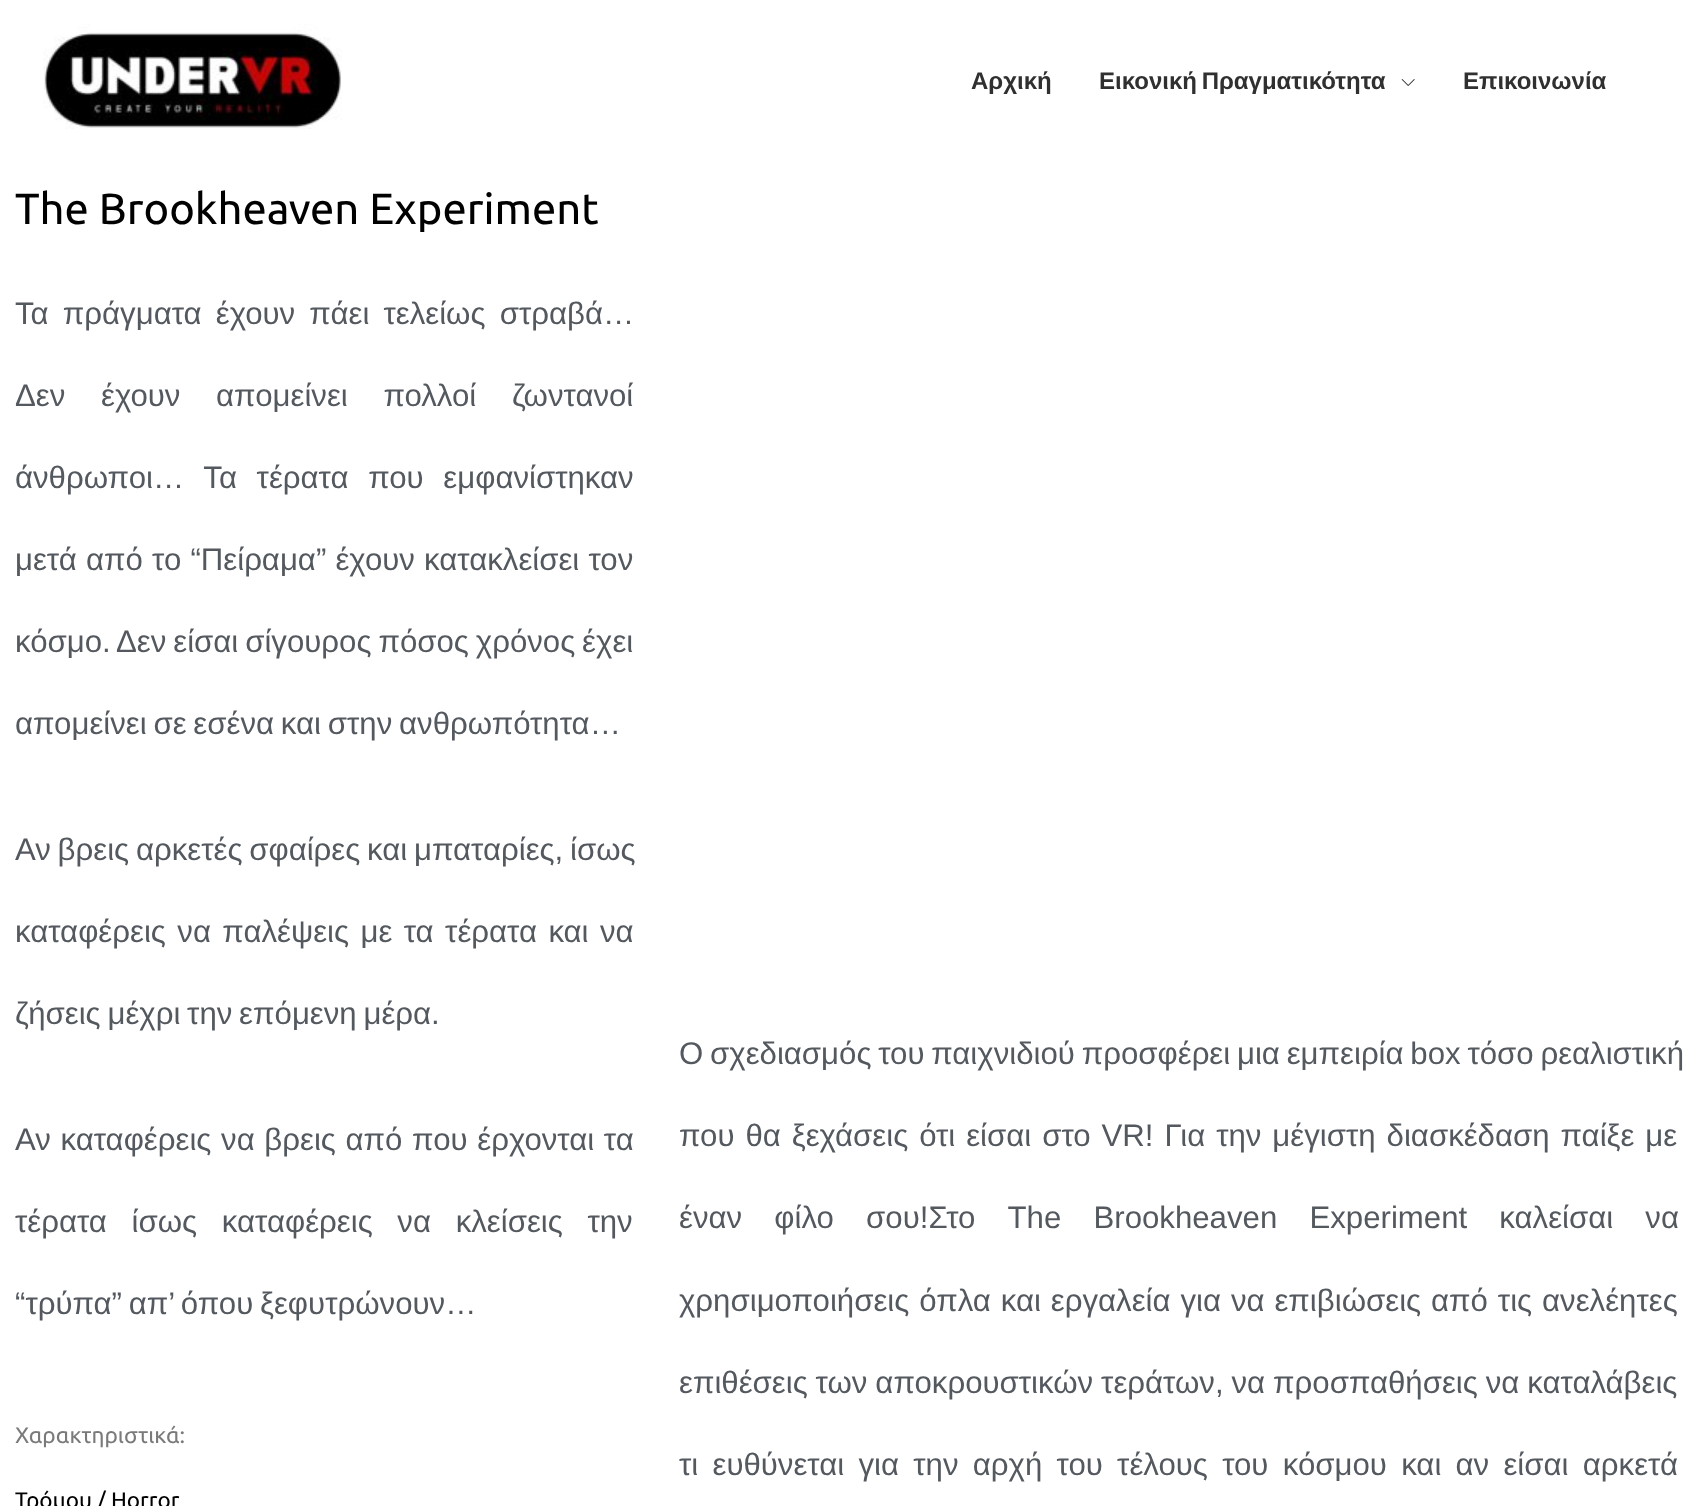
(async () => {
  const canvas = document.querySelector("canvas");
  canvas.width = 1708;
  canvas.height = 1506;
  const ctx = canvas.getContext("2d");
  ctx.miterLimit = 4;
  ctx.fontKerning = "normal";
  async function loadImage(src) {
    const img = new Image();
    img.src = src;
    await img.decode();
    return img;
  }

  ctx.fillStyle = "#ffffff";
  ctx.fillRect(0, 0, 1708, 1506);
  ctx.drawImage(await loadImage("img/1.png"), 43, 24, 299, 105);
  ctx.drawImage(await loadImage("img/2.png"), 1401, 79, 14, 7);
  ctx.font = "bold 24px Liberation Sans";
  ctx.fillStyle = "#303030";
  ctx.fillText("Αρχική", 971, 89);
  ctx.wordSpacing = "-2px";
  ctx.fillText("Εικονική Πραγματικότητα", 1099, 89);
  ctx.wordSpacing = "0px";
  ctx.fillText("Επικοινωνία", 1463, 89);
  ctx.font = "43.5px Ubuntu";
  ctx.fillStyle = "#000000";
  ctx.fillText("The Brookheaven Experiment", 15, 224);
  ctx.wordSpacing = "5.5px";
  ctx.font = "31.2px Liberation Sans";
  ctx.fillStyle = "#54595f";
  ctx.fillText("Τα πράγματα έχουν πάει τελείως στραβά…", 15, 324);
  ctx.wordSpacing = "27px";
  ctx.fillText("Δεν έχουν απομείνει πολλοί ζωντανοί", 15, 406);
  ctx.wordSpacing = "11px";
  ctx.fillText("άνθρωποι… Τα τέρατα που εμφανίστηκαν", 15, 488);
  ctx.wordSpacing = "0.5px";
  ctx.fillText("μετά από το “Πείραμα” έχουν κατακλείσει τον", 15, 570);
  ctx.wordSpacing = "-1.75px";
  ctx.fillText("κόσμο. Δεν είσαι σίγουρος πόσος χρόνος έχει", 15, 652);
  ctx.wordSpacing = "-1.9px";
  ctx.fillText("απομείνει σε εσένα και στην ανθρωπότητα…", 15, 734);
  ctx.fillText("Αν βρεις αρκετές σφαίρες και μπαταρίες, ίσως", 15, 860);
  ctx.wordSpacing = "2.75px";
  ctx.fillText("καταφέρεις να παλέψεις με τα τέρατα και να", 15, 942);
  ctx.wordSpacing = "-1.9px";
  ctx.fillText("ζήσεις μέχρι την επόμενη μέρα.", 15, 1024);
  ctx.wordSpacing = "1px";
  ctx.fillText("Αν καταφέρεις να βρεις από που έρχονται τα", 15, 1150);
  ctx.wordSpacing = "16px";
  ctx.fillText("τέρατα ίσως καταφέρεις να κλείσεις την", 15, 1232);
  ctx.wordSpacing = "-1.9px";
  ctx.fillText("“τρύπα” απ’ όπου ξεφυτρώνουν…", 15, 1314);
  ctx.wordSpacing = "0px";
  ctx.font = "22.5px Ubuntu";
  ctx.fillStyle = "#7a7a7a";
  ctx.fillText("Χαρακτηριστικά:", 15, 1443);
  ctx.fillStyle = "#000000";
  ctx.fillText("Τρόμου / Horror", 15, 1508);
  ctx.wordSpacing = "-1.9px";
  ctx.font = "31.2px Liberation Sans";
  ctx.fillStyle = "#54595f";
  ctx.fillText("Ο σχεδιασμός του παιχνιδιού προσφέρει μια εμπειρία box τόσο ρεαλιστική", 679, 1064);
  ctx.wordSpacing = "2.25px";
  ctx.fillText("που θα ξεχάσεις ότι είσαι στο VR! Για την μέγιστη διασκέδαση παίξε με", 679, 1146);
  ctx.wordSpacing = "23.5px";
  ctx.fillText("έναν φίλο σου!Στο The Brookheaven Experiment καλείσαι να", 679, 1228);
  ctx.wordSpacing = "1.25px";
  ctx.fillText("χρησιμοποιήσεις όπλα και εργαλεία για να επιβιώσεις από τις ανελέητες", 679, 1311);
  ctx.wordSpacing = "-0.75px";
  ctx.fillText("επιθέσεις των αποκρουστικών τεράτων, να προσπαθήσεις να καταλάβεις", 679, 1393);
  ctx.wordSpacing = "5.6px";
  ctx.fillText("τι ευθύνεται για την αρχή του τέλους του κόσμου και αν είσαι αρκετά", 679, 1475);
})();
